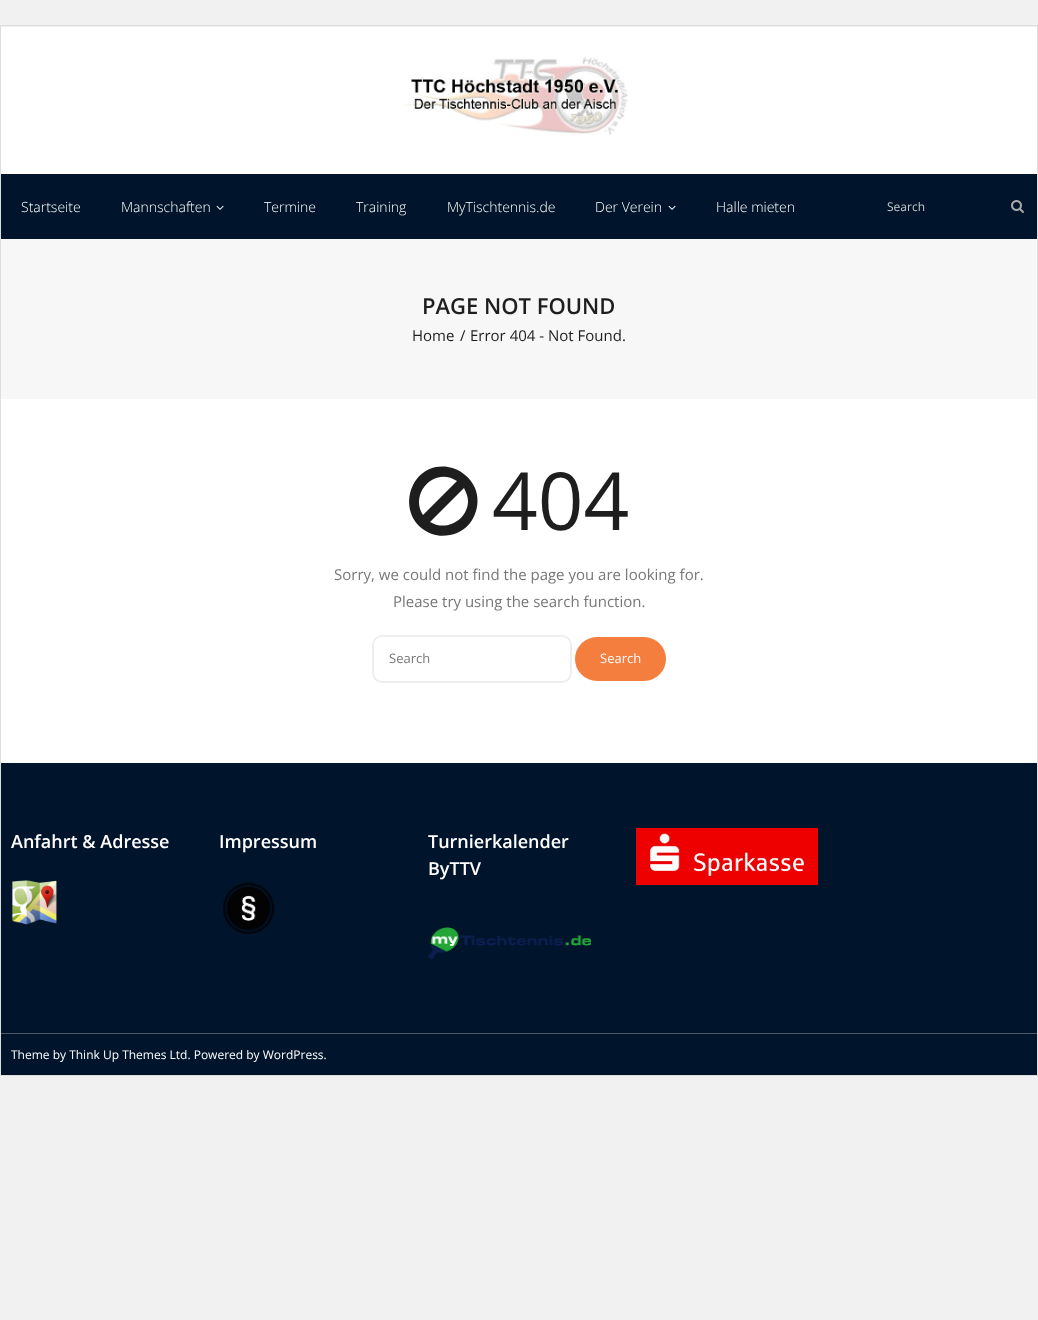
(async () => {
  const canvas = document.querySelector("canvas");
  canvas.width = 1038;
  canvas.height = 1320;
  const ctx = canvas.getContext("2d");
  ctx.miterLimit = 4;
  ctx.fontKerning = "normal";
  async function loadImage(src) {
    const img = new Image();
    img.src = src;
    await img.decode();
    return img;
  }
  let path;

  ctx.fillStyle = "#f1f1f1";
  ctx.fillRect(0, 0, 1038, 1320);
  ctx.fillStyle = "#ffffff";
  ctx.fillRect(1, 27, 1036, 736);
  ctx.strokeStyle = "#dddddd";
  ctx.strokeRect(0.5, 25.5, 1037, 1050);
  ctx.fillStyle = "#eeeeee";
  ctx.fillRect(1, 26, 1036, 1);
  ctx.drawImage(await loadImage("img/1.png"), 404, 57, 224, 78);
  ctx.fillStyle = "#00142b";
  ctx.fillRect(1, 174, 1036, 65);
  ctx.drawImage(await loadImage("img/2.png"), 216, 205, 8, 5);
  ctx.drawImage(await loadImage("img/2.png"), 668, 205, 8, 5);
  ctx.drawImage(await loadImage("img/3.png"), 1011, 200, 13, 13);
  ctx.fillStyle = "#f7f7f7";
  ctx.fillRect(1, 239, 1036, 160);
  ctx.fillStyle = "#1e1e1e";
  path = new Path2D("M468 501C468 497 466 492 464 488L430 522C446 532 468 520 468 501ZM423 515L457 481C435 466 409 493 423 515ZM475 488C482 505 474 526 457 533C449 536 440 537 432 534C393 519 408 461 448 467C460 469 470 477 475 488Z");
  ctx.fill(path);
  ctx.beginPath();
  ctx.roundRect(373, 636, 198, 46, 9);
  ctx.strokeStyle = "#eeeeee";
  ctx.lineWidth = 2;
  ctx.stroke();
  ctx.fillStyle = "#f47e3e";
  ctx.beginPath();
  ctx.roundRect(575, 637, 91, 44, 22);
  ctx.fill();
  ctx.fillStyle = "#00142b";
  ctx.fillRect(1, 763, 1036, 270);
  ctx.drawImage(await loadImage("img/4.png"), 11, 880, 46, 45);
  ctx.drawImage(await loadImage("img/5.png"), 223, 882, 52, 52);
  ctx.drawImage(await loadImage("img/6.png"), 428, 927, 163, 32);
  ctx.drawImage(await loadImage("img/7.png"), 636, 828, 182, 57);
  ctx.fillRect(1, 1034, 1036, 41);
  ctx.fillStyle = "#4b5969";
  ctx.fillRect(1, 1033, 1036, 1);
  ctx.font = "300 14px Open Sans";
  ctx.fillStyle = "#ffffff";
  for (const [text, x, y] of [
    ["Startseite", 21, 212],
    ["Mannschaften", 121, 212],
    ["Termine", 264, 212],
    ["Training", 356, 212],
    ["MyTischtennis.de", 447, 212],
    ["Der Verein", 595, 212],
    ["Halle mieten", 716, 212],
  ]) {
    ctx.fillText(text, x, y);
  }
  ctx.font = "12px Open Sans";
  ctx.fillStyle = "#cacaca";
  ctx.fillText("Search", 887, 211);
  ctx.font = "600 22px Open Sans";
  ctx.fillStyle = "#1e1e1e";
  ctx.fillText("PAGE NOT FOUND", 422, 314);
  ctx.font = "15px Open Sans";
  for (const [text, x, y] of [
    ["Home", 412, 341],
    ["/", 460, 341],
    ["Error 404 - Not Found.", 470, 341],
  ]) {
    ctx.fillText(text, x, y);
  }
  ctx.font = "80px Open Sans";
  ctx.fillText("404", 492, 530);
  ctx.font = "15px Open Sans";
  ctx.fillStyle = "#777777";
  ctx.fillText("Sorry, we could not find the page you are looking for.", 334, 580);
  ctx.fillText("Please try using the search function.", 393, 607);
  ctx.font = "13px Open Sans";
  ctx.fillText("Search", 389, 663);
  ctx.fillStyle = "#ffffff";
  ctx.fillText("Search", 600, 663);
  ctx.font = "600 18px Open Sans";
  for (const [text, x, y] of [
    ["Anfahrt & Adresse", 11, 848],
    ["Impressum", 219, 848],
    ["Turnierkalender", 428, 848],
    ["ByTTV", 428, 875],
  ]) {
    ctx.fillText(text, x, y);
  }
  ctx.font = "12px Open Sans";
  ctx.fillText("Theme by Think Up Themes Ltd. Powered by WordPress.", 11, 1059);
})();
